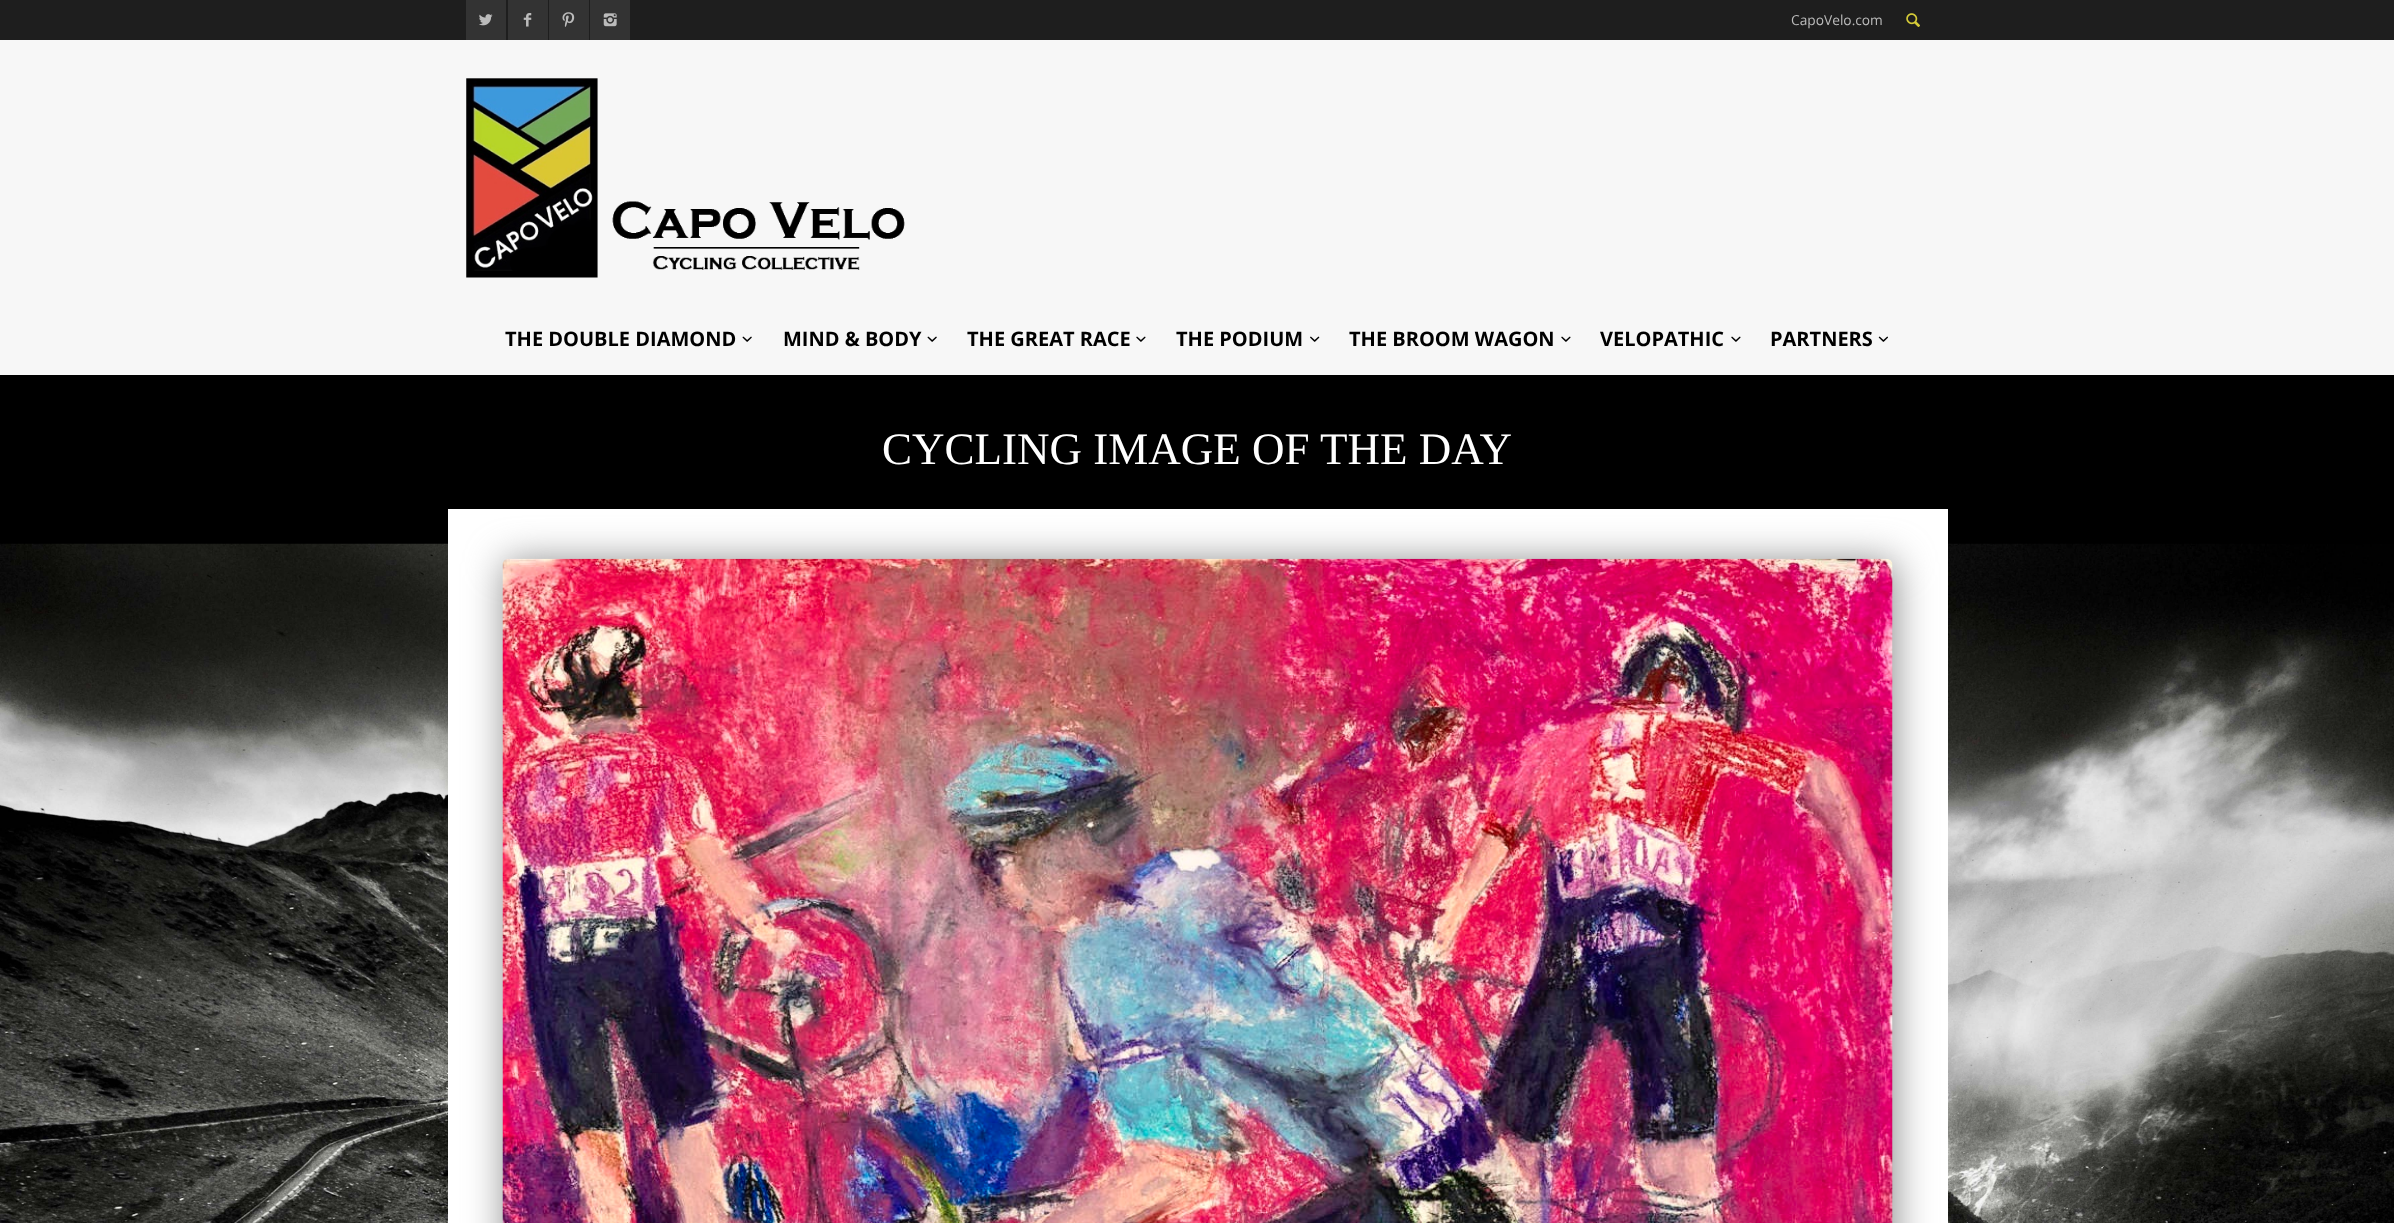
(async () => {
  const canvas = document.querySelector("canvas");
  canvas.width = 2394;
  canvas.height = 1223;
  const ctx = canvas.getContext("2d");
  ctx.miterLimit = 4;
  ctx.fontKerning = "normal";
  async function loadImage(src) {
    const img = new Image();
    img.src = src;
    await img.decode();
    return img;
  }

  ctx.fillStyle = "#f7f7f7";
  ctx.fillRect(0, 0, 2394, 1223);
  ctx.fillStyle = "#1e1e1e";
  ctx.fillRect(0, 0, 2394, 40);
  ctx.fillStyle = "#333333";
  ctx.fillRect(466, 0, 40, 40);
  ctx.drawImage(await loadImage("img/1.png"), 479, 14, 14, 12);
  ctx.fillRect(508, 0, 40, 40);
  ctx.drawImage(await loadImage("img/2.png"), 523, 13, 9, 14);
  ctx.fillRect(549, 0, 40, 40);
  ctx.drawImage(await loadImage("img/3.png"), 562, 12, 13, 15);
  ctx.fillRect(590, 0, 40, 40);
  ctx.drawImage(await loadImage("img/4.png"), 603, 13, 14, 14);
  ctx.drawImage(await loadImage("img/5.png"), 1906, 13, 14, 14);
  ctx.drawImage(await loadImage("img/6.png"), 466, 78, 439, 200);
  ctx.drawImage(await loadImage("img/7.png"), 742, 336, 10, 6);
  ctx.drawImage(await loadImage("img/7.png"), 927, 336, 10, 6);
  ctx.drawImage(await loadImage("img/8.png"), 1136, 336, 10, 6);
  ctx.drawImage(await loadImage("img/9.png"), 1310, 336, 10, 6);
  ctx.drawImage(await loadImage("img/8.png"), 1561, 336, 10, 6);
  ctx.drawImage(await loadImage("img/8.png"), 1731, 336, 10, 6);
  ctx.drawImage(await loadImage("img/10.png"), 1878, 336, 10, 6);
  ctx.fillStyle = "#000000";
  ctx.fillRect(0, 375, 2394, 169);
  ctx.drawImage(await loadImage("img/12.png"), 0, 543, 2394, 680);
  ctx.fillStyle = "#ffffff";
  ctx.fillRect(448, 509, 1500, 714);
  ctx.fillStyle = "#888888";
  ctx.filter = "blur(19px)";
  ctx.beginPath();
  ctx.roundRect(505, 561, 1390, 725, 6);
  ctx.fill();
  ctx.filter = "none";
  ctx.drawImage(await loadImage("img/11.png"), 502, 558, 1391, 665);
  ctx.font = "13.75px Open Sans";
  ctx.fillStyle = "#bbbbbb";
  ctx.fillText("CapoVelo.com", 1791, 25);
  ctx.font = "bold 20px Open Sans";
  ctx.fillStyle = "#000000";
  for (const [text, x, y] of [
    ["THE DOUBLE DIAMOND", 505, 346],
    ["MIND & BODY", 783, 346],
    ["THE GREAT RACE", 967, 346],
    ["THE PODIUM", 1176, 346],
    ["THE BROOM WAGON", 1349, 346],
    ["VELOPATHIC", 1600, 346],
    ["PARTNERS", 1770, 346],
  ]) {
    ctx.fillText(text, x, y);
  }
  ctx.font = "45px Liberation Serif";
  ctx.fillStyle = "#ffffff";
  ctx.fillText("CYCLING IMAGE OF THE DAY", 882, 464);
})();
